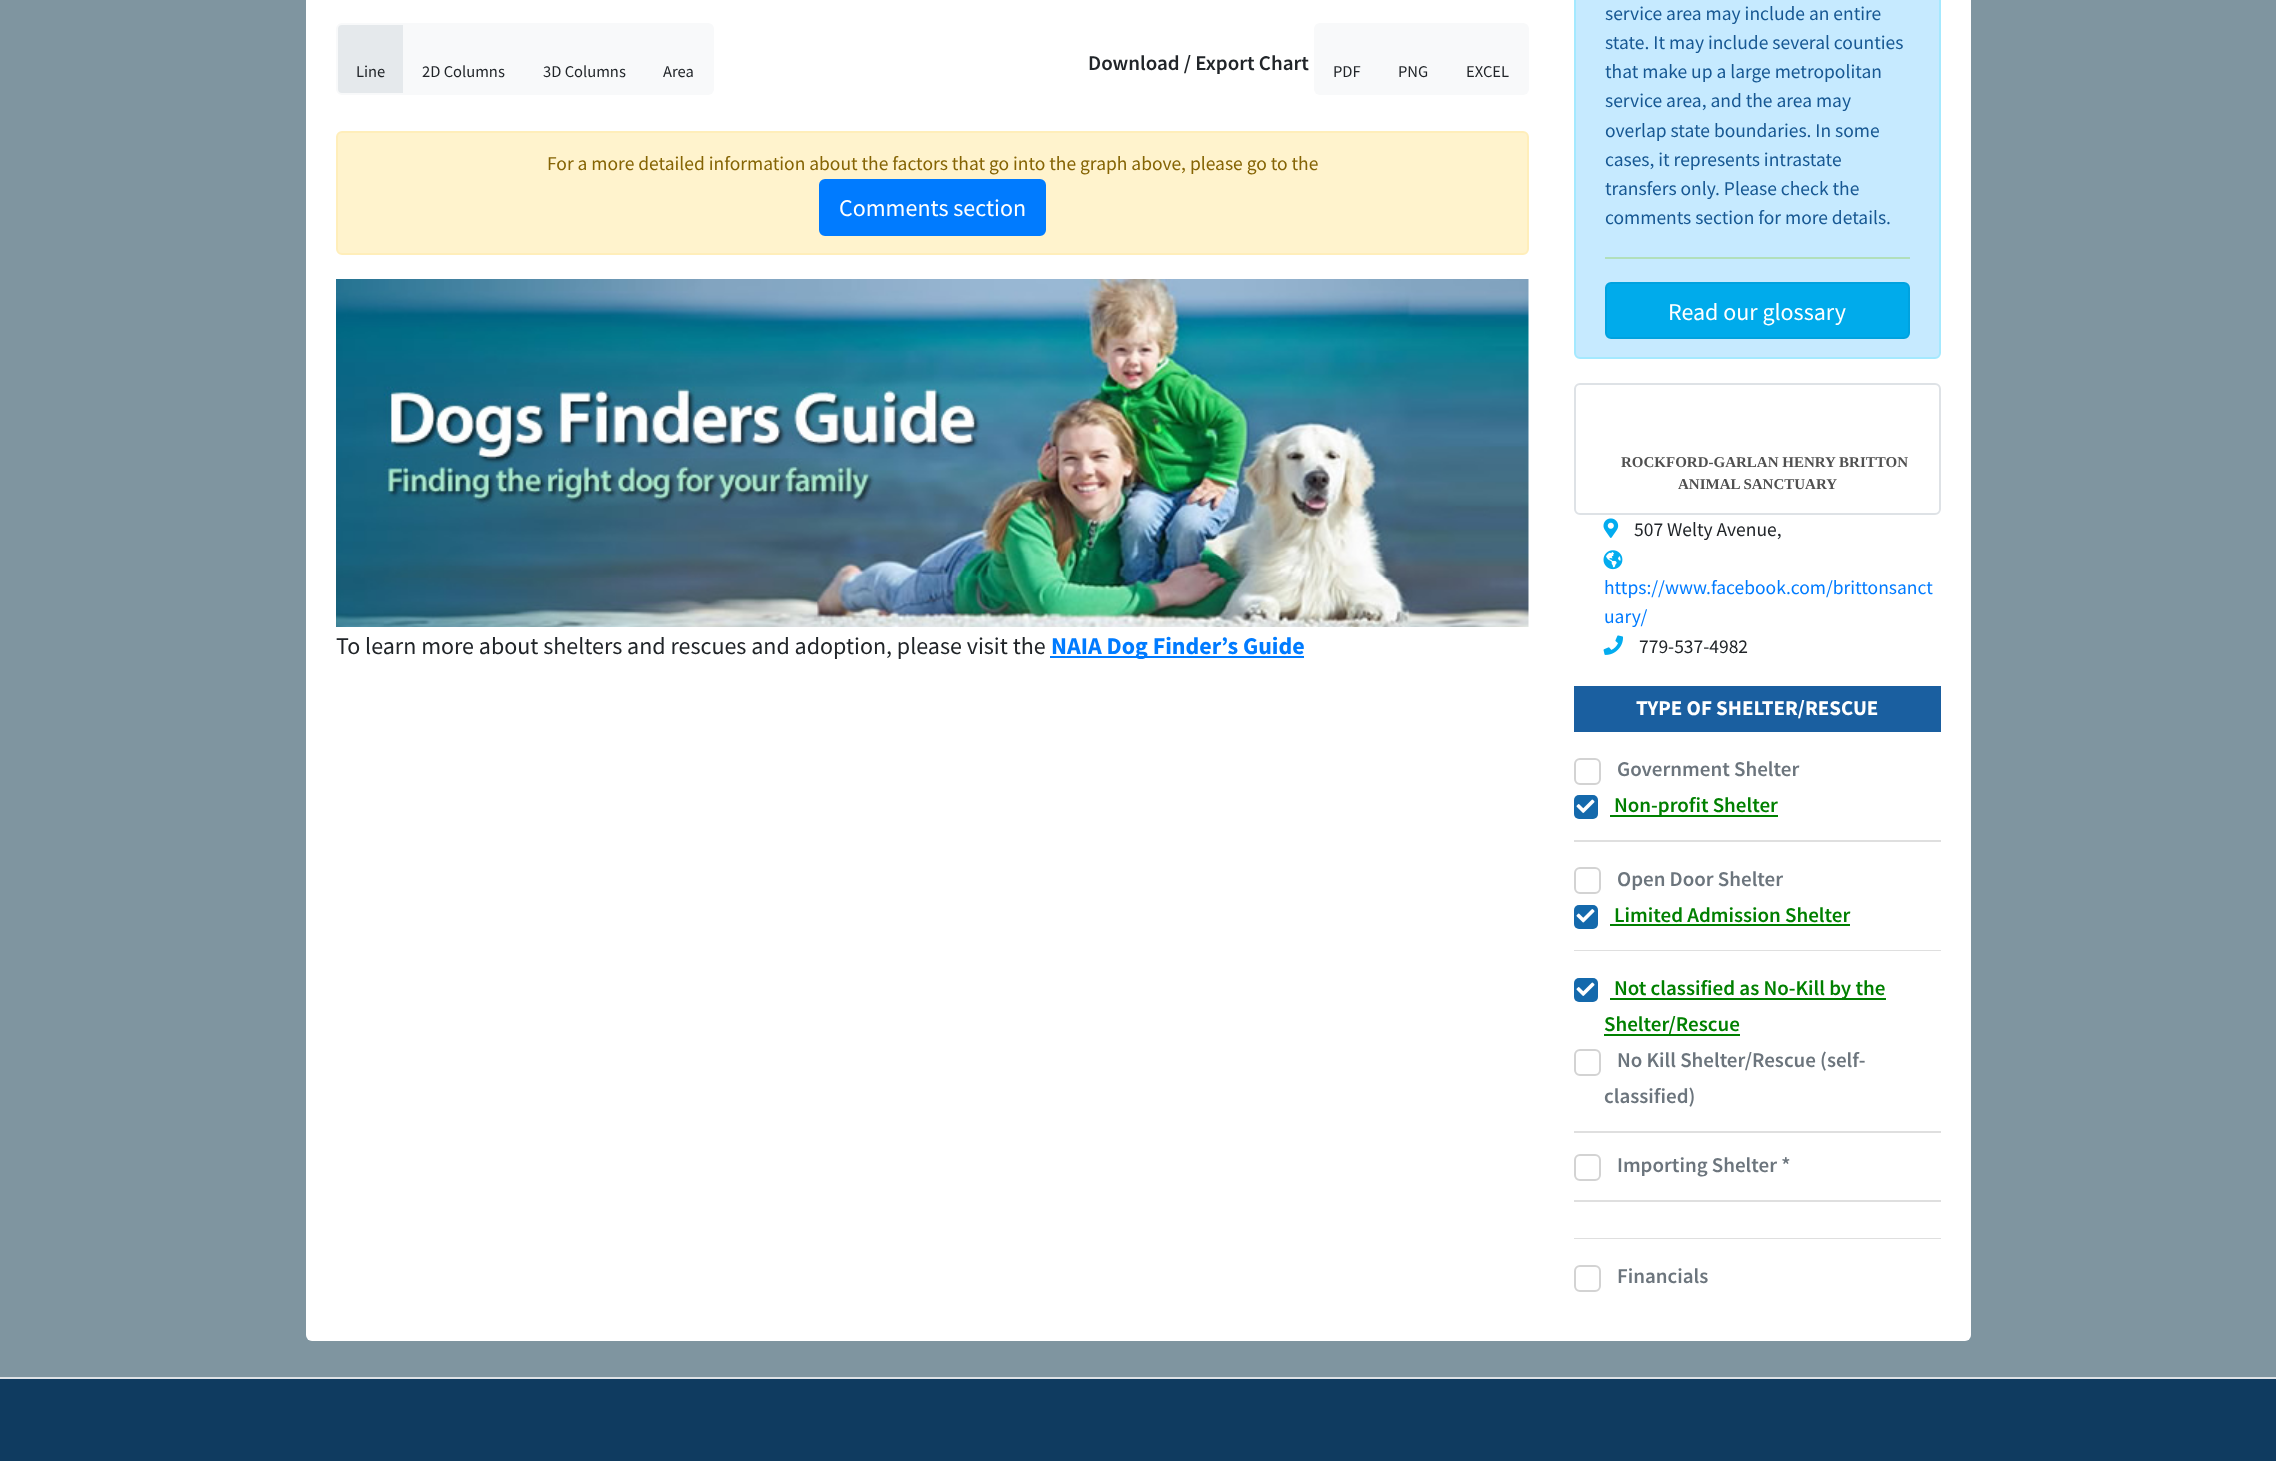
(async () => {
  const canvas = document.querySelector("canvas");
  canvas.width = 2276;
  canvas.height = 1461;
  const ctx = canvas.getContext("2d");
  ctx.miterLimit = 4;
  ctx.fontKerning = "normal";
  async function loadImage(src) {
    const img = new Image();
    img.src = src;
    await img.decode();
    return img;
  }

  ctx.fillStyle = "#7f95a0";
  ctx.fillRect(0, 0, 2276, 1461);
  ctx.fillStyle = "#ffffff";
  ctx.beginPath();
  ctx.roundRect(306, -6, 1665, 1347, 6);
  ctx.fill();
  ctx.fillStyle = "#e5e9ec";
  ctx.beginPath();
  ctx.roundRect(337, 24, 67, 70, [5, 0, 0, 5]);
  ctx.fill();
  ctx.strokeStyle = "#f8f9fa";
  ctx.lineWidth = 2;
  ctx.stroke();
  ctx.fillStyle = "#f8f9fa";
  ctx.fillRect(405, 23, 239, 72);
  ctx.beginPath();
  ctx.roundRect(644, 23, 70, 72, [0, 6, 6, 0]);
  ctx.fill();
  ctx.beginPath();
  ctx.roundRect(1314, 23, 66, 72, [6, 0, 0, 6]);
  ctx.fill();
  ctx.fillRect(1380, 23, 66, 72);
  ctx.beginPath();
  ctx.roundRect(1446, 23, 83, 72, [0, 6, 6, 0]);
  ctx.fill();
  ctx.fillStyle = "#fff3cd";
  ctx.beginPath();
  ctx.roundRect(337, 132, 1191, 122, 5);
  ctx.fill();
  ctx.strokeStyle = "#ffeeba";
  ctx.stroke();
  ctx.fillStyle = "#007bff";
  ctx.beginPath();
  ctx.roundRect(820, 180, 225, 55, 5);
  ctx.fill();
  ctx.strokeStyle = "#007bff";
  ctx.stroke();
  ctx.drawImage(await loadImage("img/1.png"), 336, 279, 1193, 348);
  ctx.fillRect(1050, 656, 254, 2);
  ctx.fillStyle = "#c6eaff";
  ctx.beginPath();
  ctx.roundRect(1575, -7, 365, 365, 5);
  ctx.fill();
  ctx.strokeStyle = "#a4e9ff";
  ctx.stroke();
  ctx.fillStyle = "#b1dfbb";
  ctx.fillRect(1605, 257, 305, 2);
  ctx.fillStyle = "#00abeb";
  ctx.beginPath();
  ctx.roundRect(1606, 283, 303, 55, 5);
  ctx.fill();
  ctx.strokeStyle = "#00a2df";
  ctx.stroke();
  ctx.beginPath();
  ctx.roundRect(1575, 384, 365, 130, 5);
  ctx.strokeStyle = "#dee2e6";
  ctx.stroke();
  ctx.drawImage(await loadImage("img/2.png"), 1603, 518, 16, 20);
  ctx.drawImage(await loadImage("img/3.png"), 1603, 550, 20, 20);
  ctx.drawImage(await loadImage("img/4.png"), 1603, 635, 20, 20);
  ctx.fillStyle = "#1a5fa0";
  ctx.fillRect(1574, 686, 367, 46);
  ctx.fillStyle = "#dfdfdf";
  ctx.fillRect(1574, 840, 367, 2);
  ctx.beginPath();
  ctx.roundRect(1575, 759, 25, 25, 5);
  ctx.strokeStyle = "#d3d3d3";
  ctx.stroke();
  ctx.fillStyle = "#1469ac";
  ctx.beginPath();
  ctx.roundRect(1574, 795, 24, 24, 5);
  ctx.fill();
  ctx.drawImage(await loadImage("img/5.png"), 1576, 799, 19, 14);
  ctx.fillStyle = "#008000";
  ctx.fillRect(1610, 815, 168, 2);
  ctx.fillStyle = "#dfdfdf";
  ctx.fillRect(1574, 950, 367, 1);
  ctx.beginPath();
  ctx.roundRect(1575, 868, 25, 25, 5);
  ctx.stroke();
  ctx.fillStyle = "#1469ac";
  ctx.beginPath();
  ctx.roundRect(1574, 905, 24, 24, 5);
  ctx.fill();
  ctx.drawImage(await loadImage("img/6.png"), 1576, 909, 19, 14);
  ctx.fillStyle = "#008000";
  ctx.fillRect(1610, 924, 240, 2);
  ctx.fillStyle = "#dfdfdf";
  ctx.fillRect(1574, 1131, 367, 2);
  ctx.fillStyle = "#1469ac";
  ctx.beginPath();
  ctx.roundRect(1574, 978, 24, 24, 5);
  ctx.fill();
  ctx.drawImage(await loadImage("img/5.png"), 1576, 982, 19, 14);
  ctx.fillStyle = "#008000";
  ctx.fillRect(1610, 998, 276, 2);
  ctx.fillRect(1604, 1034, 136, 2);
  ctx.beginPath();
  ctx.roundRect(1575, 1050, 25, 25, 5);
  ctx.stroke();
  ctx.fillStyle = "#dfdfdf";
  ctx.fillRect(1574, 1200, 367, 2);
  ctx.beginPath();
  ctx.roundRect(1575, 1155, 25, 25, 5);
  ctx.stroke();
  ctx.fillRect(1574, 1238, 367, 1);
  ctx.beginPath();
  ctx.roundRect(1575, 1266, 25, 25, 5);
  ctx.stroke();
  ctx.fillStyle = "#0f3b60";
  ctx.fillRect(0, 1379, 2276, 82);
  ctx.fillStyle = "#dee2e6";
  ctx.fillRect(0, 1377, 2276, 2);
  ctx.font = "16.5px Source Sans Pro";
  ctx.fillStyle = "#212529";
  for (const [text, x, y] of [
    ["Line", 356, 77],
    ["2D Columns", 422, 77],
    ["3D Columns", 543, 77],
    ["Area", 663, 77],
  ]) {
    ctx.fillText(text, x, y);
  }
  ctx.font = "600 21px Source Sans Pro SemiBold";
  ctx.fillText("Download / Export Chart", 1088, 70);
  ctx.font = "16.5px Source Sans Pro";
  for (const [text, x, y] of [
    ["PDF", 1333, 77],
    ["PNG", 1398, 77],
    ["EXCEL", 1466, 77],
  ]) {
    ctx.fillText(text, x, y);
  }
  ctx.font = "19.5px Source Sans Pro";
  ctx.fillStyle = "#856404";
  ctx.fillText("For a more detailed information about the factors that go into the graph above, please go to the", 547, 170);
  ctx.font = "24px Source Sans Pro";
  ctx.fillStyle = "#ffffff";
  ctx.fillText("Comments section", 839, 216);
  ctx.fillStyle = "#212529";
  ctx.fillText("To learn more about shelters and rescues and adoption, please visit the", 336, 654);
  ctx.font = "bold 24px Source Sans Pro";
  ctx.fillStyle = "#007bff";
  ctx.fillText("NAIA Dog Finder’s Guide", 1051, 654);
  ctx.font = "19.5px Source Sans Pro";
  ctx.fillStyle = "#175893";
  for (const [text, x, y] of [
    ["service area may include an entire", 1605, 20],
    ["state. It may include several counties", 1605, 49],
    ["that make up a large metropolitan", 1605, 78],
    ["service area, and the area may", 1605, 107],
    ["overlap state boundaries. In some", 1605, 137],
    ["cases, it represents intrastate", 1605, 166],
    ["transfers only. Please check the", 1605, 195],
    ["comments section for more details.", 1605, 224],
  ]) {
    ctx.fillText(text, x, y);
  }
  ctx.font = "24px Source Sans Pro";
  ctx.fillStyle = "#ffffff";
  ctx.fillText("Read our glossary", 1668, 320);
  ctx.font = "bold 15px Liberation Serif";
  ctx.fillStyle = "#505050";
  ctx.fillText("ROCKFORD-GARLAN HENRY BRITTON", 1621, 467);
  ctx.fillText("ANIMAL SANCTUARY", 1678, 489);
  ctx.font = "19.5px Source Sans Pro";
  ctx.fillStyle = "#212529";
  ctx.fillText("507 Welty Avenue,", 1634, 536);
  ctx.fillStyle = "#007bff";
  ctx.fillText("https://www.facebook.com/brittonsanct", 1604, 594);
  ctx.fillText("uary/", 1604, 623);
  ctx.fillStyle = "#212529";
  ctx.fillText("779-537-4982", 1639, 653);
  ctx.font = "bold 21px Source Sans Pro";
  ctx.fillStyle = "#ffffff";
  ctx.fillText("TYPE OF SHELTER/RESCUE", 1636, 715);
  ctx.font = "600 21px Source Sans Pro SemiBold";
  ctx.fillStyle = "#6c757d";
  ctx.fillText("Government Shelter", 1617, 776);
  ctx.fillStyle = "#008000";
  ctx.fillText("Non-profit Shelter", 1614, 812);
  ctx.fillStyle = "#6c757d";
  ctx.fillText("Open Door Shelter", 1617, 886);
  ctx.fillStyle = "#008000";
  for (const [text, x, y] of [
    ["Limited Admission Shelter", 1614, 922],
    ["Not classified as No-Kill by the", 1614, 995],
    ["Shelter/Rescue", 1604, 1031],
  ]) {
    ctx.fillText(text, x, y);
  }
  ctx.fillStyle = "#6c757d";
  for (const [text, x, y] of [
    ["No Kill Shelter/Rescue (self-", 1617, 1067],
    ["classified)", 1604, 1103],
    ["Importing Shelter *", 1617, 1172],
    ["Financials", 1617, 1283],
  ]) {
    ctx.fillText(text, x, y);
  }
})();
